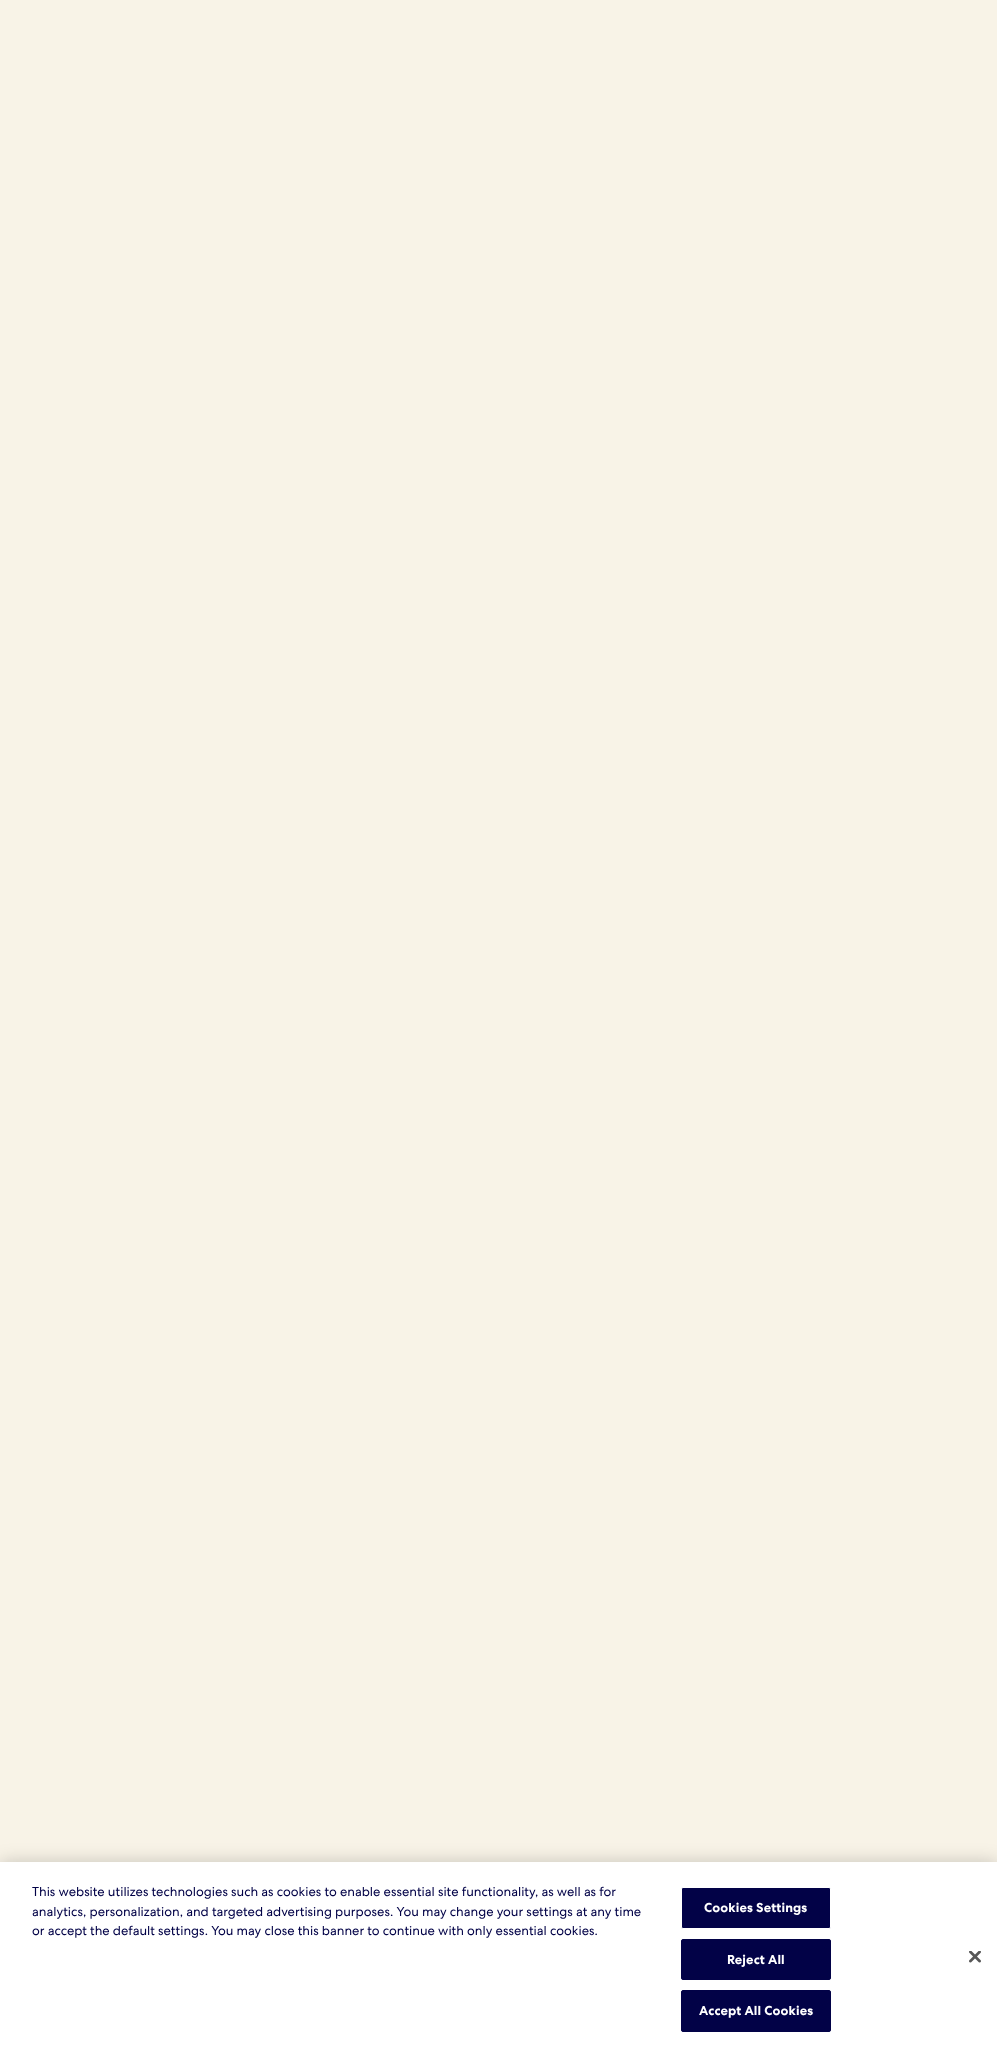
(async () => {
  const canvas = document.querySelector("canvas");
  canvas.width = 997;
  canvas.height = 2052;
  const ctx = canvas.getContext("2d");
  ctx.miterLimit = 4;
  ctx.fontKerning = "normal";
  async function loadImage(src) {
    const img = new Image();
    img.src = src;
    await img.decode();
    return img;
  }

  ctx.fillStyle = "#f8f3e7";
  ctx.fillRect(0, 0, 997, 2052);
  ctx.fillStyle = "rgba(0, 0, 0, 0.2)";
  ctx.filter = "blur(9px)";
  ctx.beginPath();
  ctx.rect(0, 1862, 997, 190);
  ctx.fill();
  ctx.filter = "none";
  ctx.fillStyle = "#ffffff";
  ctx.fillRect(0, 1862, 997, 190);
  ctx.fillStyle = "#020247";
  ctx.beginPath();
  ctx.roundRect(681.5, 1887.5, 149, 41, 1.5);
  ctx.fill();
  ctx.strokeStyle = "#ffffff";
  ctx.stroke();
  ctx.beginPath();
  ctx.roundRect(681.5, 1939.5, 149, 40, 1.5);
  ctx.fill();
  ctx.strokeStyle = "#020247";
  ctx.stroke();
  ctx.beginPath();
  ctx.roundRect(681.5, 1990.5, 149, 41, 1.5);
  ctx.fill();
  ctx.stroke();
  ctx.drawImage(await loadImage("img/1.png"), 969, 1951, 12, 12);
  ctx.font = "13px 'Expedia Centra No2'";
  for (const [text, x, y] of [
    ["This website utilizes technologies such as cookies to enable essential site functionality, as well as for", 32, 1896],
    ["analytics, personalization, and targeted advertising purposes. You may change your settings at any time", 32, 1916],
    ["or accept the default settings. You may close this banner to continue with only essential cookies.", 32, 1935],
  ]) {
    ctx.fillText(text, x, y);
  }
  ctx.letterSpacing = "0.1px";
  ctx.font = "bold 13px 'Expedia Centra No2'";
  ctx.fillStyle = "#ffffff";
  for (const [text, x, y] of [
    ["Cookies Settings", 704, 1912],
    ["Reject All", 727, 1964],
    ["Accept All Cookies", 699, 2015],
  ]) {
    ctx.fillText(text, x, y);
  }
})();
